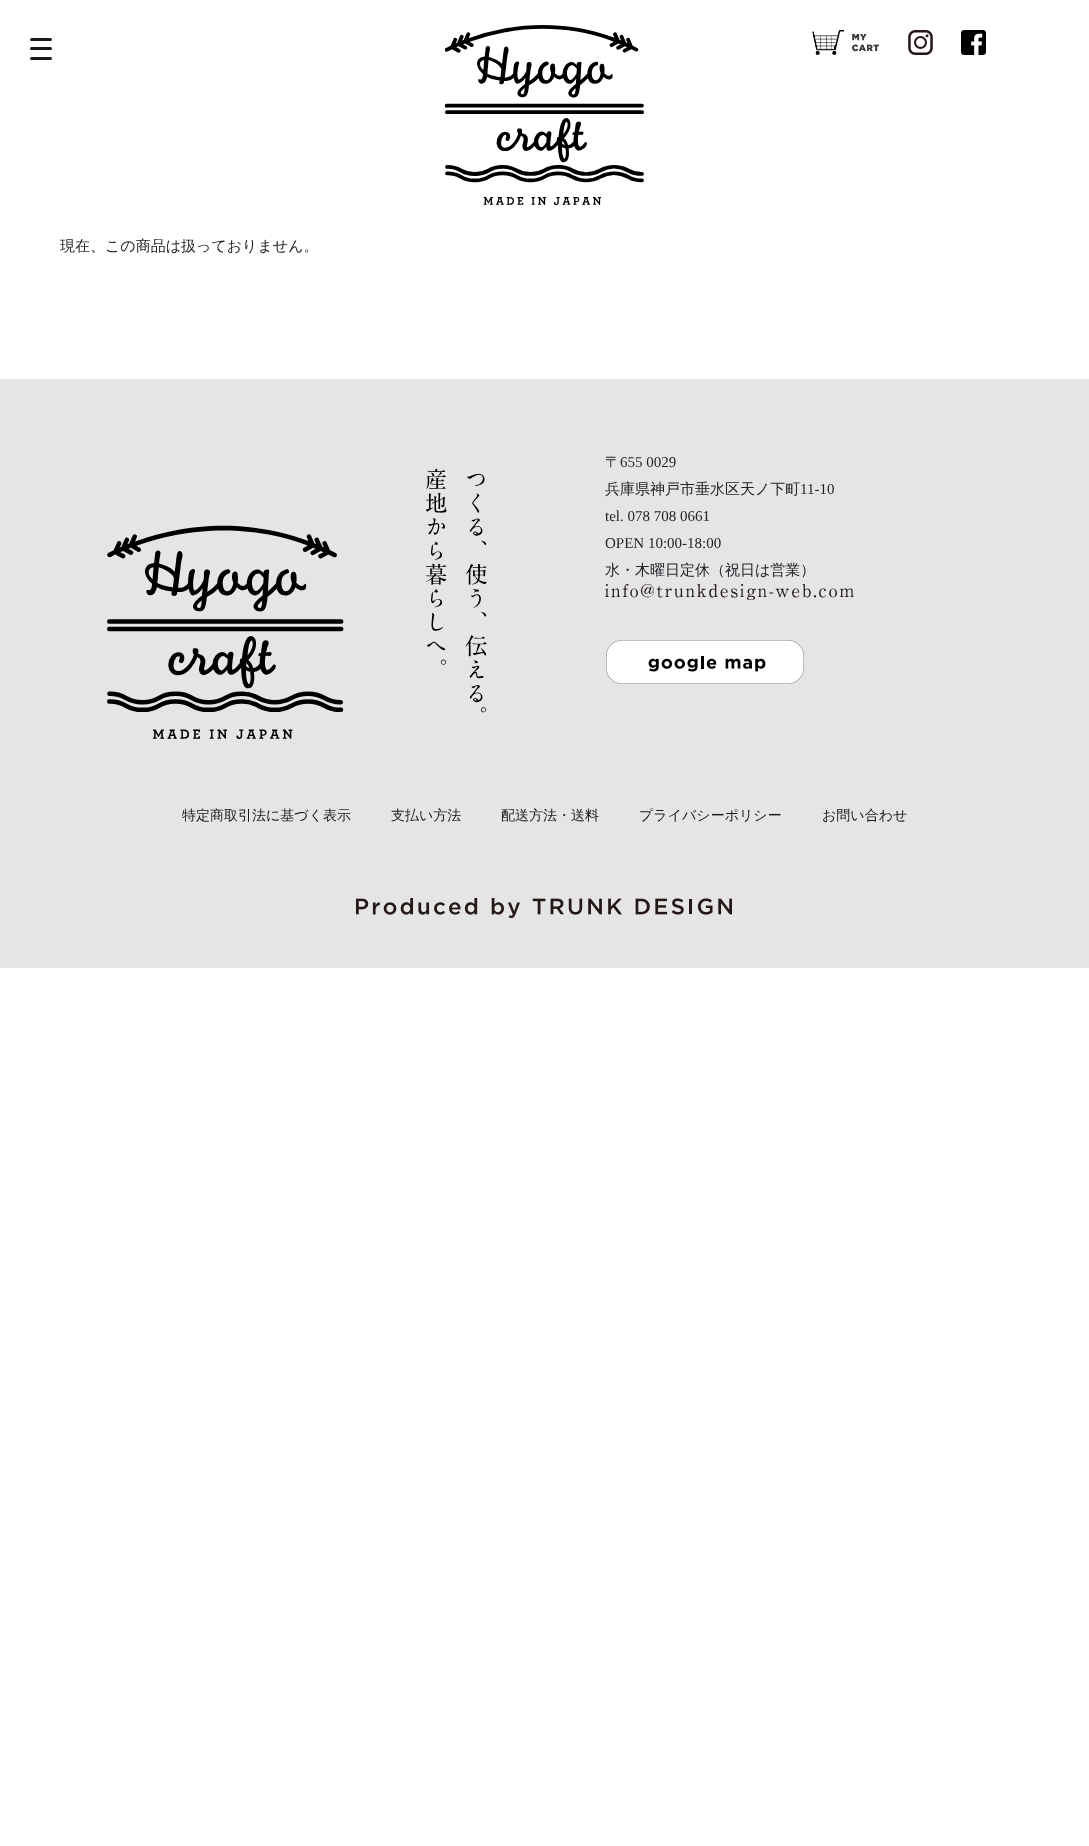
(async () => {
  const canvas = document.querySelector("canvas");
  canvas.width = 1089;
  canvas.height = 1846;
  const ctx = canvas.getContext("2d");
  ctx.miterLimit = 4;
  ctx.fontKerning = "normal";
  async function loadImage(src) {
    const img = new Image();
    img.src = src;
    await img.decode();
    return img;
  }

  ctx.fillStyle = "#ffffff";
  ctx.fillRect(0, 0, 1089, 1846);
  ctx.fillStyle = "#1a1a1a";
  ctx.beginPath();
  ctx.roundRect(30, 38, 22, 3, 1.5);
  ctx.fill();
  ctx.beginPath();
  ctx.roundRect(30, 47, 22, 3, 1.5);
  ctx.fill();
  ctx.beginPath();
  ctx.roundRect(30, 57, 22, 3, 1.5);
  ctx.fill();
  ctx.drawImage(await loadImage("img/1.png"), 445, 25, 199, 180);
  ctx.drawImage(await loadImage("img/2.png"), 811, 30, 68, 25);
  ctx.drawImage(await loadImage("img/3.png"), 908, 30, 25, 25);
  ctx.drawImage(await loadImage("img/4.png"), 961, 30, 25, 25);
  ctx.fillStyle = "#e5e5e5";
  ctx.fillRect(0, 379, 1089, 589);
  ctx.drawImage(await loadImage("img/5.png"), 107, 469, 380, 270);
  ctx.drawImage(await loadImage("img/6.png"), 605, 584, 249, 16);
  ctx.drawImage(await loadImage("img/7.png"), 606, 640, 198, 44);
  ctx.drawImage(await loadImage("img/8.png"), 356, 898, 376, 20);
  ctx.font = "500 15px WenQuanYi Zen Hei";
  ctx.fillStyle = "#212529";
  ctx.fillText("現在、この商品は扱っておりません。", 60, 251);
  ctx.fillText("〒", 605, 467);
  ctx.font = "15px Liberation Serif";
  ctx.fillText("655 0029", 620, 467);
  ctx.font = "500 15px WenQuanYi Zen Hei";
  ctx.fillText("兵庫県神戸市垂水区天ノ下町", 605, 494);
  ctx.font = "15px Liberation Serif";
  for (const [text, x, y] of [
    ["11-10", 800, 494],
    ["tel. 078 708 0661", 605, 521],
    ["OPEN 10:00-18:00", 605, 548],
  ]) {
    ctx.fillText(text, x, y);
  }
  ctx.font = "500 15px WenQuanYi Zen Hei";
  ctx.fillText("水・木曜日定休（祝日は営業）", 605, 575);
  ctx.font = "500 14px WenQuanYi Zen Hei";
  ctx.fillStyle = "#1a1a1a";
  for (const [text, x, y] of [
    ["特定商取引法に基づく表示", 182, 820],
    ["支払い方法", 391, 820],
    ["配送方法・送料", 501, 820],
    ["プライバシーポリシー", 639, 820],
    ["お問い合わせ", 822, 820],
  ]) {
    ctx.fillText(text, x, y);
  }
})();
